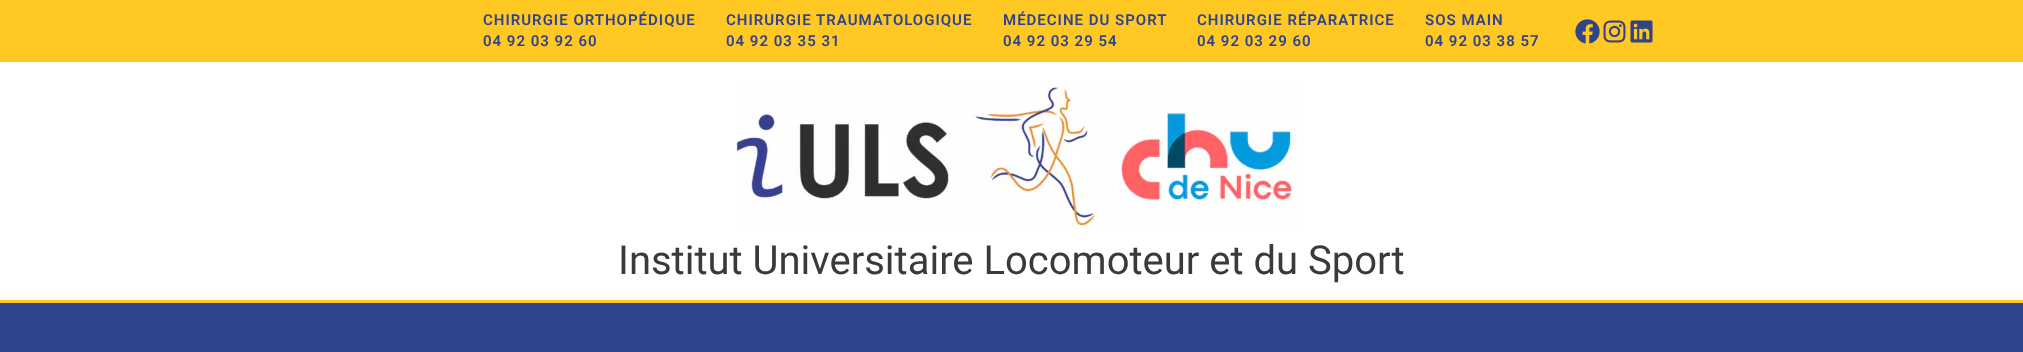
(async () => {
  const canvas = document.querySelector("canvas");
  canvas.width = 2023;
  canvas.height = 352;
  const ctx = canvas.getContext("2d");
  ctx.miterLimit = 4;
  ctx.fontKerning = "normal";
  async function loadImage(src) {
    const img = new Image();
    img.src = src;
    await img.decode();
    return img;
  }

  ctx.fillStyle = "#ffffff";
  ctx.fillRect(0, 0, 2023, 352);
  ctx.fillStyle = "#ffc823";
  ctx.fillRect(0, 0, 2023, 62);
  ctx.drawImage(await loadImage("img/1.png"), 1575, 19, 25, 25);
  ctx.drawImage(await loadImage("img/2.png"), 1603, 20, 23, 23);
  ctx.drawImage(await loadImage("img/3.png"), 1630, 20, 23, 23);
  ctx.fillRect(0, 300, 2023, 3);
  ctx.drawImage(await loadImage("img/4.png"), 736, 85, 561, 144);
  ctx.fillStyle = "#30438e";
  ctx.fillRect(0, 303, 2023, 49);
  ctx.letterSpacing = "1px";
  ctx.font = "600 15px Roboto";
  for (const [text, x, y] of [
    ["CHIRURGIE ORTHOPÉDIQUE", 483, 25],
    ["04 92 03 92 60", 483, 46],
    ["CHIRURGIE TRAUMATOLOGIQUE", 726, 25],
    ["04 92 03 35 31", 726, 46],
    ["MÉDECINE DU SPORT", 1003, 25],
    ["04 92 03 29 54", 1003, 46],
    ["CHIRURGIE RÉPARATRICE", 1197, 25],
    ["04 92 03 29 60", 1197, 46],
    ["SOS MAIN", 1425, 25],
    ["04 92 03 38 57", 1425, 46],
  ]) {
    ctx.fillText(text, x, y);
  }
  ctx.letterSpacing = "0px";
  ctx.font = "40px Roboto";
  ctx.fillStyle = "#3a3a3a";
  ctx.fillText("Institut Universitaire Locomoteur et du Sport", 618, 274);
})();
